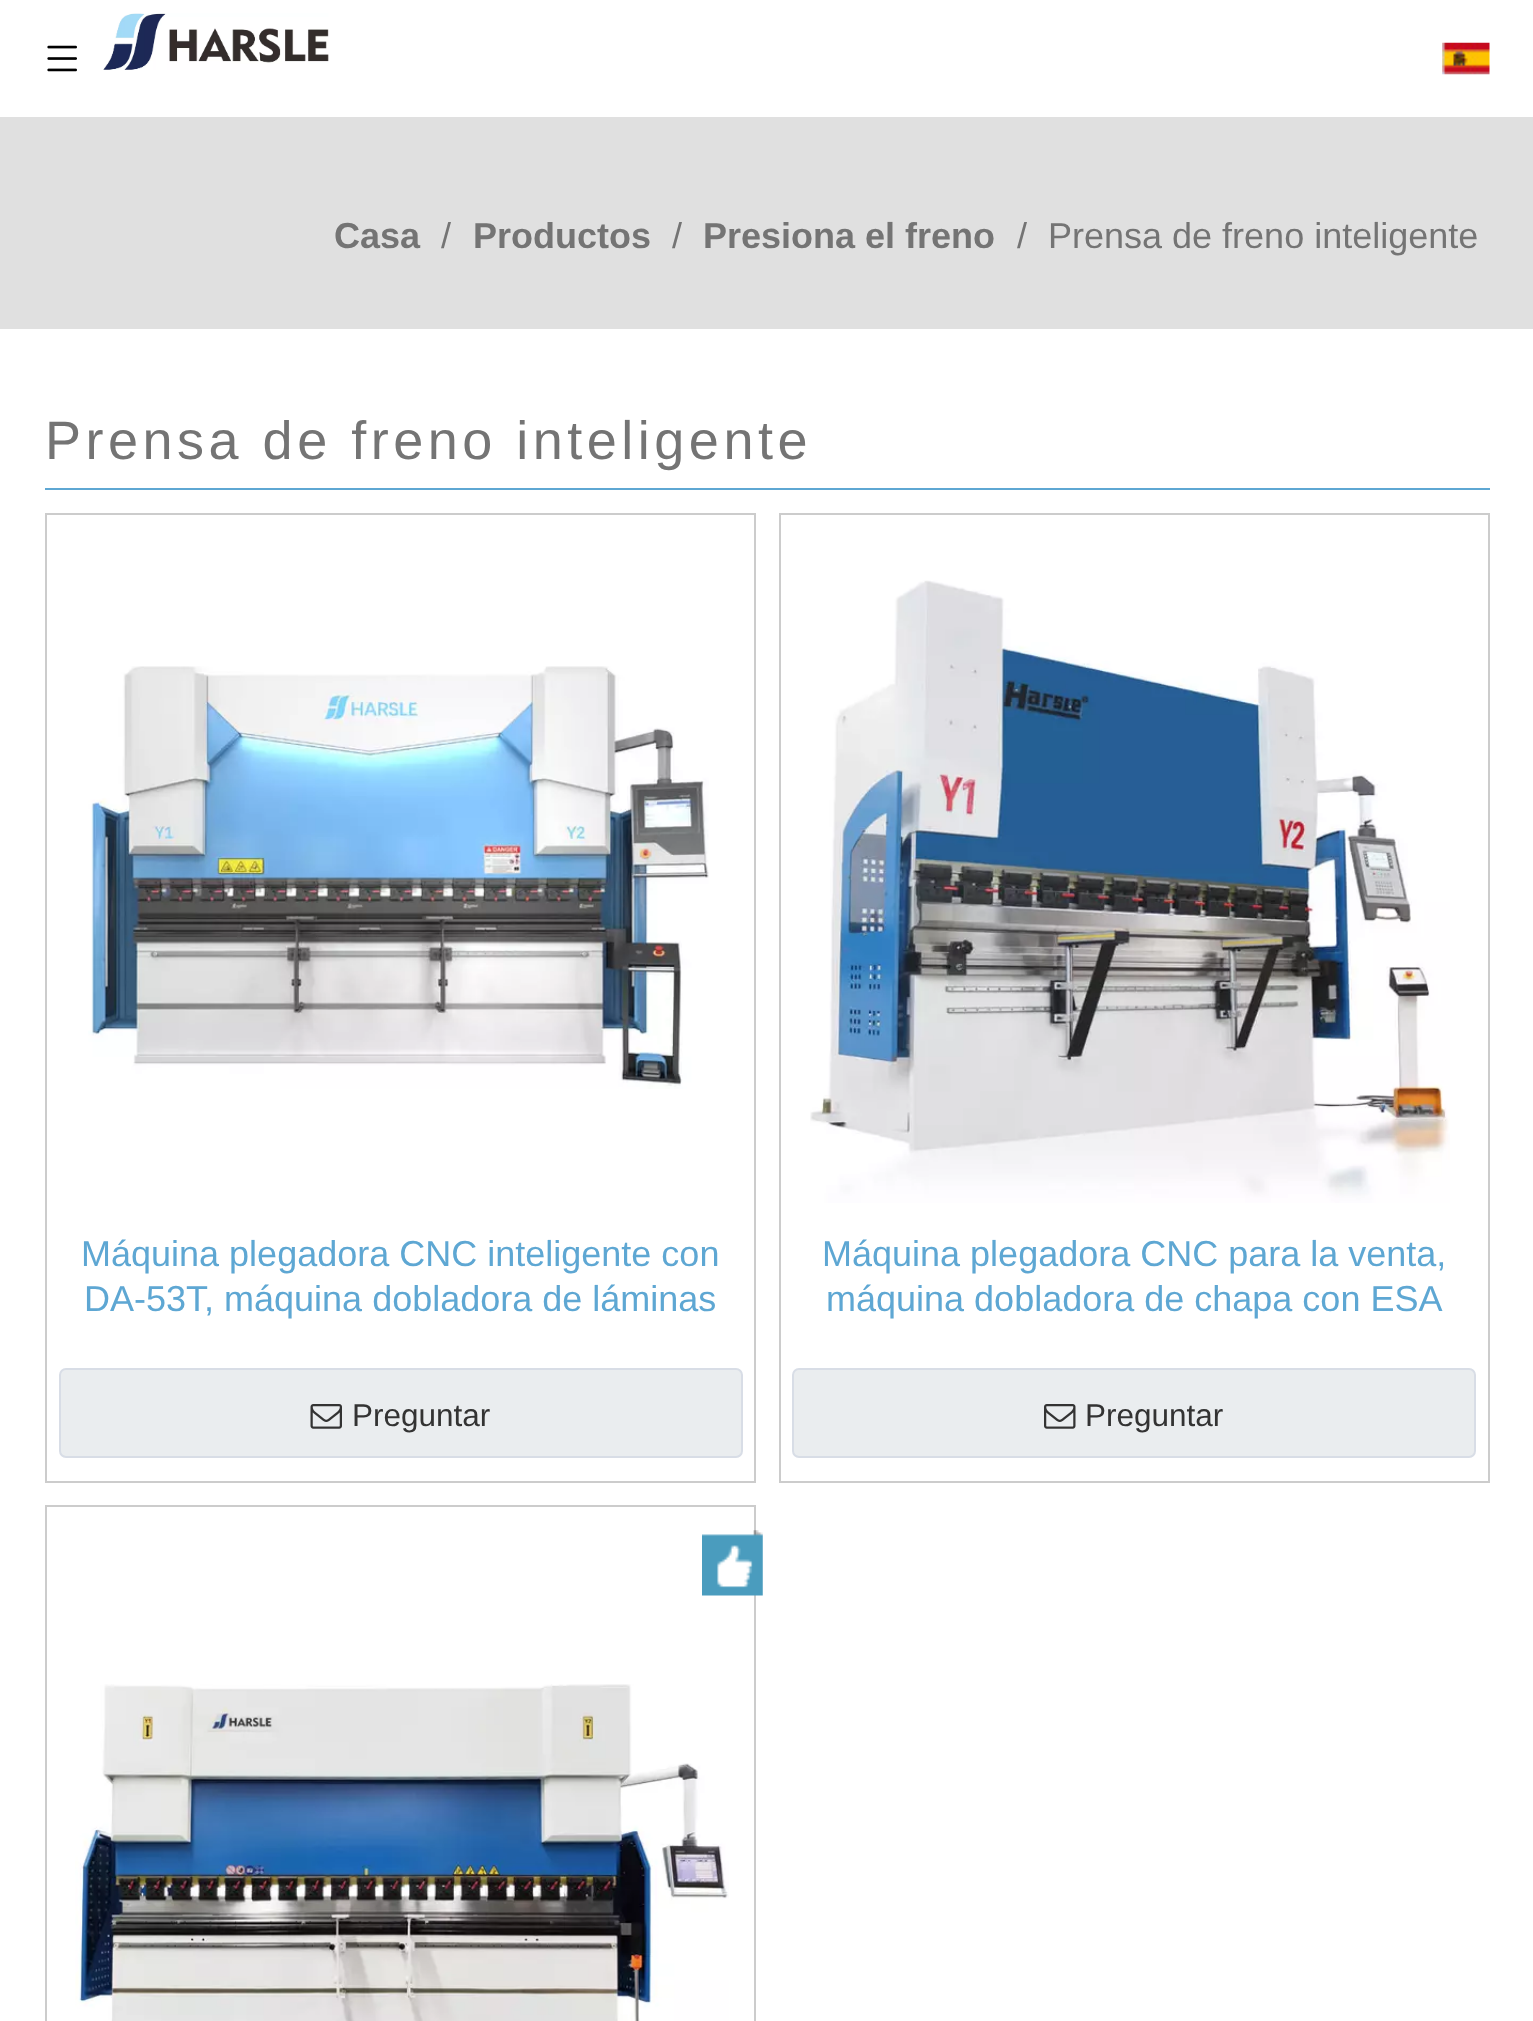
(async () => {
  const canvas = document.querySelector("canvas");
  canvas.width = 1533;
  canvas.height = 2021;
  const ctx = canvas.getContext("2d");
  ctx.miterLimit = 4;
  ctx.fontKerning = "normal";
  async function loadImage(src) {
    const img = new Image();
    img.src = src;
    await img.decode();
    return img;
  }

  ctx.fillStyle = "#ffffff";
  ctx.fillRect(0, 0, 1533, 2021);
  ctx.drawImage(await loadImage("img/1.png"), 47, 45, 30, 27);
  ctx.drawImage(await loadImage("img/2.png"), 103, 13, 226, 57);
  ctx.drawImage(await loadImage("img/3.png"), 1442, 42, 48, 33);
  ctx.fillStyle = "#e0e0e0";
  ctx.fillRect(0, 117, 1533, 212);
  ctx.fillStyle = "#5ea7d3";
  ctx.fillRect(45, 488, 1445, 2);
  ctx.strokeStyle = "#cccccc";
  ctx.lineWidth = 2;
  ctx.strokeRect(46, 514, 709, 968);
  ctx.drawImage(await loadImage("img/4.png"), 88, 666, 621, 423);
  ctx.fillStyle = "#eaedef";
  ctx.beginPath();
  ctx.roundRect(60, 1369, 682, 88, 6);
  ctx.fill();
  ctx.strokeStyle = "#d8dde6";
  ctx.stroke();
  ctx.drawImage(await loadImage("img/5.png"), 310, 1404, 32, 25);
  ctx.strokeStyle = "#cccccc";
  ctx.strokeRect(780, 514, 709, 968);
  ctx.drawImage(await loadImage("img/6.png"), 810, 580, 640, 623);
  ctx.beginPath();
  ctx.roundRect(793, 1369, 682, 88, 6);
  ctx.fill();
  ctx.strokeStyle = "#d8dde6";
  ctx.stroke();
  ctx.drawImage(await loadImage("img/7.png"), 1044, 1404, 32, 25);
  ctx.strokeStyle = "#cccccc";
  ctx.strokeRect(46, 1506, 709, 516);
  ctx.drawImage(await loadImage("img/8.png"), 702, 1530, 61, 66);
  ctx.drawImage(await loadImage("img/9.png"), 75, 1684, 654, 337);
  ctx.font = "bold 36px Liberation Sans";
  ctx.fillStyle = "#747474";
  ctx.fillText("Casa", 334, 248);
  ctx.font = "36px Liberation Sans";
  ctx.fillText("/", 441, 248);
  ctx.font = "bold 36px Liberation Sans";
  ctx.fillText("Productos", 473, 248);
  ctx.font = "36px Liberation Sans";
  ctx.fillText("/", 672, 248);
  ctx.font = "bold 36px Liberation Sans";
  ctx.fillText("Presiona el freno", 703, 248);
  ctx.font = "36px Liberation Sans";
  ctx.fillText("/", 1017, 248);
  ctx.fillText("Prensa de freno inteligente", 1048, 248);
  ctx.letterSpacing = "4.5px";
  ctx.font = "54px Liberation Sans";
  ctx.fillText("Prensa de freno inteligente", 45, 459);
  ctx.letterSpacing = "0px";
  ctx.font = "36px Liberation Sans";
  ctx.fillStyle = "#5ea7d3";
  ctx.fillText("Máquina plegadora CNC inteligente con", 81, 1266);
  ctx.fillText("DA-53T, máquina dobladora de láminas", 84, 1311);
  ctx.font = "31.5px Liberation Sans";
  ctx.fillStyle = "#333333";
  ctx.fillText("Preguntar", 352, 1426);
  ctx.font = "36px Liberation Sans";
  ctx.fillStyle = "#5ea7d3";
  ctx.fillText("Máquina plegadora CNC para la venta,", 822, 1266);
  ctx.fillText("máquina dobladora de chapa con ESA", 826, 1311);
  ctx.font = "31.5px Liberation Sans";
  ctx.fillStyle = "#333333";
  ctx.fillText("Preguntar", 1085, 1426);
})();
